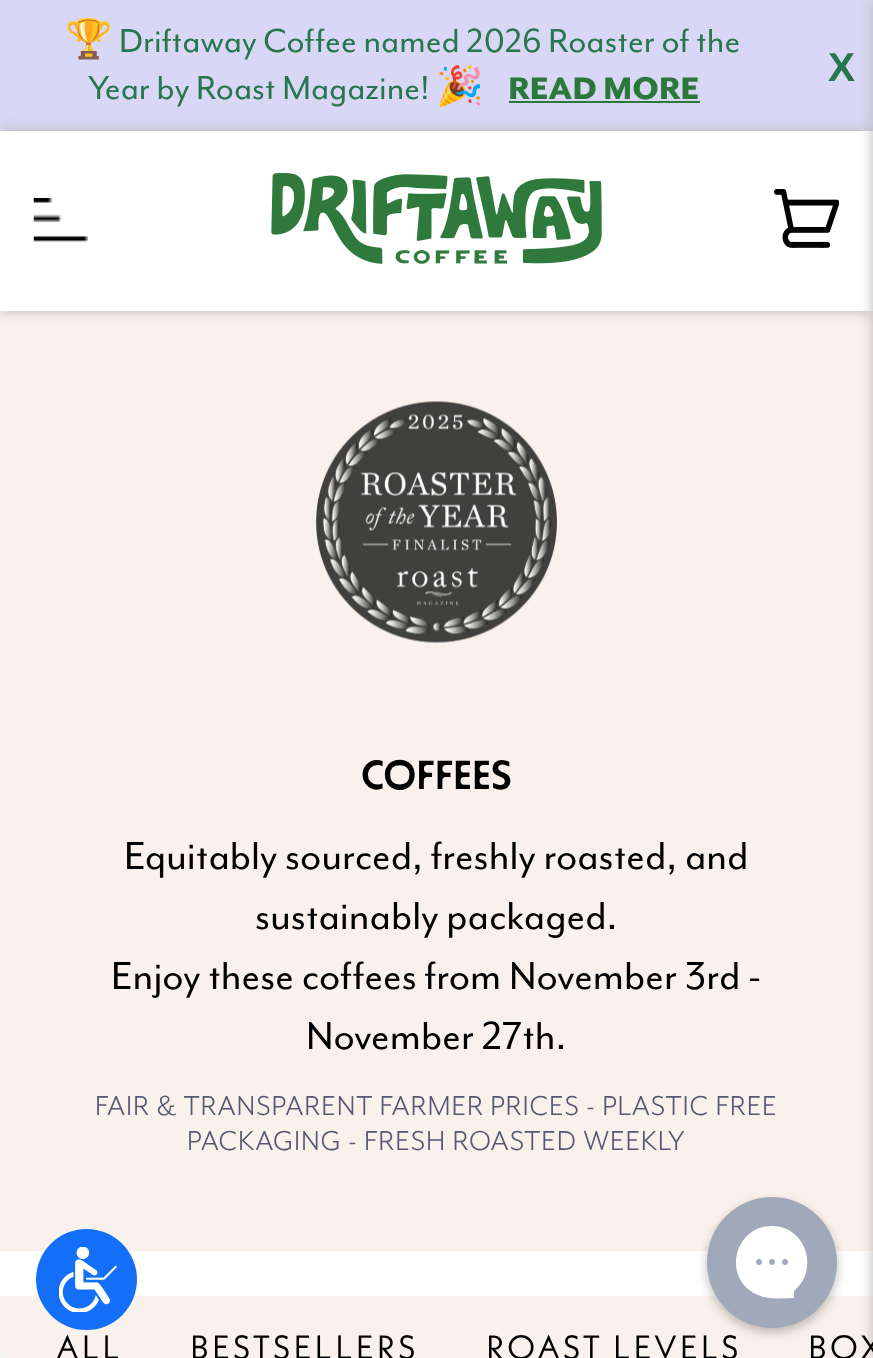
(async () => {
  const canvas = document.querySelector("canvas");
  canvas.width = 873;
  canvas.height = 1358;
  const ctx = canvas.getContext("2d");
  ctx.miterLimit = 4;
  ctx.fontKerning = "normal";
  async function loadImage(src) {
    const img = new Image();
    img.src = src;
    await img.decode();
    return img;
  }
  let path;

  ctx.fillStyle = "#ffffff";
  ctx.fillRect(0, 0, 873, 1358);
  for (const [x, y, w, h, color] of [
    [0, 0, 873, 131, "#d8d8f6"],
    [509, 101, 191, 2, "#2c783a"],
    [0, 311, 873, 940, "#faf1ec"],
  ]) {
    ctx.fillStyle = color;
    ctx.fillRect(x, y, w, h);
  }
  ctx.fillStyle = "#b7b7b7";
  ctx.filter = "blur(7px)";
  ctx.beginPath();
  ctx.rect(0, 131, 873, 180);
  ctx.fill();
  ctx.filter = "none";
  ctx.fillStyle = "#ffffff";
  ctx.fillRect(0, 131, 873, 180);
  ctx.fillStyle = "#faf1ec";
  ctx.fillRect(0, 1296, 873, 62);
  ctx.fillStyle = "#b7b7b7";
  ctx.filter = "blur(7px)";
  ctx.beginPath();
  ctx.rect(873, 0, 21, 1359);
  ctx.fill();
  ctx.filter = "none";
  ctx.drawImage(await loadImage("img/1.png"), 33, 198, 55, 44);
  ctx.drawImage(await loadImage("img/2.png"), 271, 172, 331, 92);
  ctx.drawImage(await loadImage("img/3.png"), 774, 189, 65, 59);
  ctx.drawImage(await loadImage("img/4.png"), 316, 401, 241, 242);
  ctx.fillStyle = "#146ff8";
  ctx.beginPath();
  ctx.arc(86.5, 1279.5, 50.5, 0, Math.PI * 2);
  ctx.fill();
  ctx.drawImage(await loadImage("img/5.png"), 59, 1247, 58, 65);
  ctx.fillStyle = "rgba(0, 0, 0, 0.26)";
  ctx.filter = "blur(5.5px)";
  ctx.beginPath();
  ctx.roundRect(707, 1202, 130, 130, 65);
  ctx.fill();
  ctx.filter = "none";
  ctx.fillStyle = "#9fa9b9";
  ctx.beginPath();
  ctx.roundRect(707, 1197, 130, 131, 65);
  ctx.fill();
  ctx.fillStyle = "#ffffff";
  path = new Path2D("M772 1226C733 1226 722 1280 758 1295C769 1300 782 1298 794 1298V1291C820 1270 806 1226 772 1226ZM759 1265C755 1265 755 1259 759 1259C763 1259 763 1265 759 1265ZM772 1265C768 1265 768 1259 772 1259C776 1259 776 1265 772 1265ZM785 1265C781 1265 781 1259 785 1259C789 1259 789 1265 785 1265Z");
  ctx.fill(path);
  ctx.fillStyle = "#f5f5f5";
  ctx.fillRect(0, 1355, 5, 3);
  ctx.font = "38.25px Noto Color Emoji";
  ctx.fillStyle = "#27764e";
  ctx.fillText("🏆", 65, 52);
  ctx.font = "38.25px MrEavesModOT";
  ctx.fillText("Driftaway Coffee named 2026 Roaster of the", 119, 52);
  ctx.fillText("Year by Roast Magazine!", 88, 99);
  ctx.font = "38.25px Noto Color Emoji";
  ctx.fillText("🎉", 436, 99);
  ctx.font = "900 36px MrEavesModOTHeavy";
  ctx.fillStyle = "#2c783a";
  ctx.fillText("READ MORE", 508, 99);
  ctx.font = "bold 40.5px Liberation Sans";
  ctx.fillStyle = "#27764e";
  ctx.fillText("X", 828, 81);
  ctx.font = "40.5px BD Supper";
  ctx.fillStyle = "#000000";
  ctx.fillText("COFFEES", 361, 789);
  ctx.font = "45px MrEavesModOT";
  for (const [text, x, y] of [
    ["Equitably sourced, freshly roasted, and", 124, 869],
    ["sustainably packaged.", 255, 929],
    ["Enjoy these coffees from November 3rd -", 111, 989],
    ["November 27th.", 306, 1049],
  ]) {
    ctx.fillText(text, x, y);
  }
  ctx.letterSpacing = "0.9px";
  ctx.font = "31.5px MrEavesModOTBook";
  ctx.fillStyle = "#545871";
  ctx.fillText("FAIR & TRANSPARENT FARMER PRICES - PLASTIC FREE", 95, 1115);
  ctx.fillText("PACKAGING - FRESH ROASTED WEEKLY", 187, 1150);
  ctx.letterSpacing = "3px";
  ctx.font = "33.75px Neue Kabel";
  ctx.fillStyle = "#000000";
  for (const [text, x, y] of [
    ["ALL", 56, 1359],
    ["BESTSELLERS", 190, 1359],
    ["ROAST LEVELS", 486, 1359],
    ["BOX", 808, 1359],
  ]) {
    ctx.fillText(text, x, y);
  }
})();
